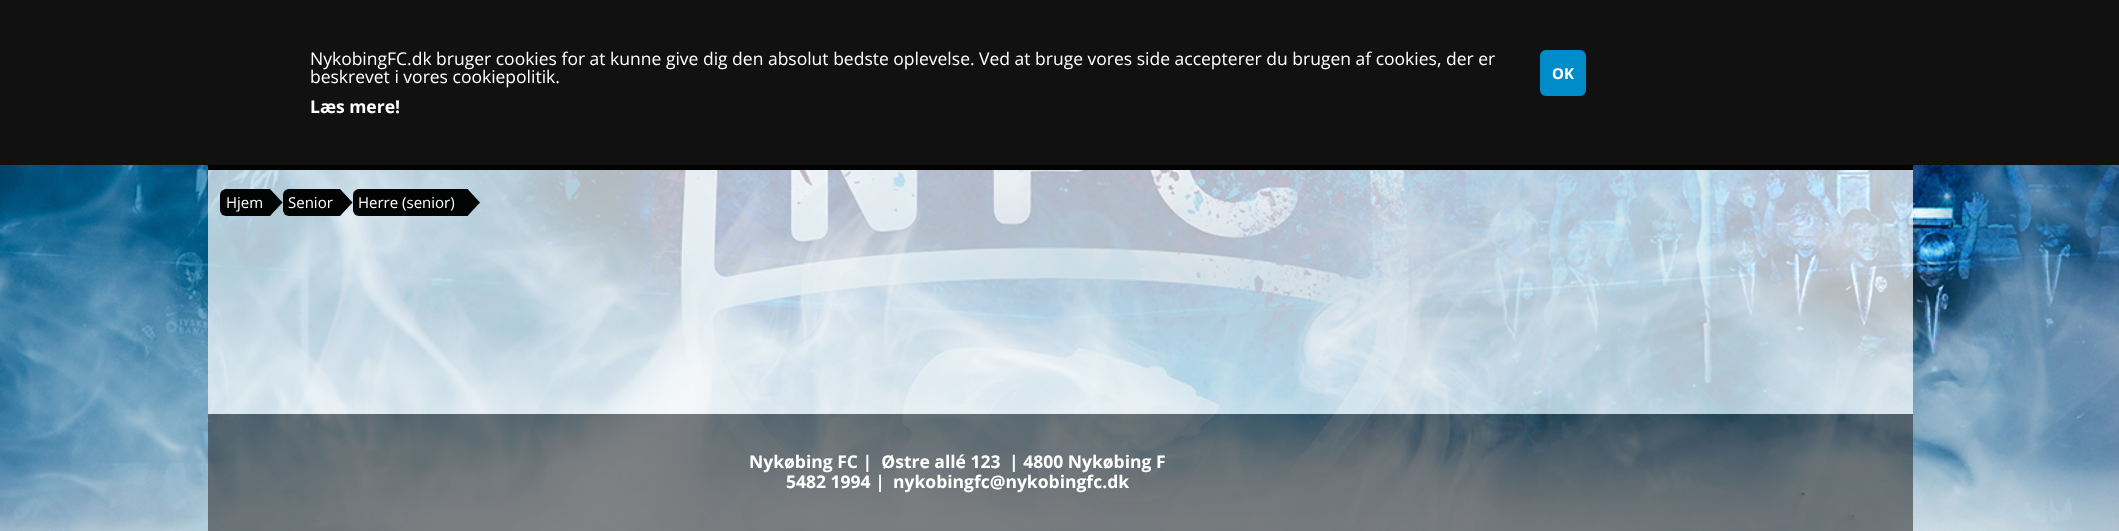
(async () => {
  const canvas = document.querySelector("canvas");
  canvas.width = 2119;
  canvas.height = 531;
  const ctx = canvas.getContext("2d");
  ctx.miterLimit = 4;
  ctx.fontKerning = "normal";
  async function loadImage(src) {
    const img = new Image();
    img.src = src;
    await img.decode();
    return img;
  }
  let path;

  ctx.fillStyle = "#ffffff";
  ctx.fillRect(0, 0, 2119, 531);
  ctx.fillStyle = "#111111";
  ctx.fillRect(0, 0, 2119, 165);
  ctx.fillStyle = "#008cc8";
  ctx.beginPath();
  ctx.roundRect(1540, 50, 46, 46, 6);
  ctx.fill();
  ctx.drawImage(await loadImage("img/1.png"), 0, 165, 2119, 366);
  ctx.fillStyle = "#020303";
  ctx.fillRect(208, 165, 1705, 5);
  ctx.fillStyle = "rgba(255, 255, 255, 0.7)";
  ctx.fillRect(208, 170, 1705, 244);
  ctx.fillStyle = "#020303";
  ctx.beginPath();
  ctx.roundRect(220, 189, 50, 27, [6, 0, 0, 6]);
  ctx.fill();
  path = new Path2D("M270 216V189L282.5 202.5Z");
  ctx.fill(path);
  ctx.beginPath();
  ctx.roundRect(283, 189, 57, 27, [6, 0, 0, 6]);
  ctx.fill();
  path = new Path2D("M340 216V189L352.5 202.5Z");
  ctx.fill(path);
  ctx.beginPath();
  ctx.roundRect(353, 189, 115, 27, [6, 0, 0, 6]);
  ctx.fill();
  path = new Path2D("M467.5 216V189L480 202.5Z");
  ctx.fill(path);
  ctx.fillStyle = "rgba(51, 51, 51, 0.6)";
  ctx.fillRect(208, 414, 1705, 117);
  ctx.font = "17.5px Open Sans";
  ctx.fillStyle = "#ffffff";
  ctx.fillText("NykobingFC.dk bruger cookies for at kunne give dig den absolut bedste oplevelse. Ved at bruge vores side accepterer du brugen af cookies, der er", 310, 65);
  ctx.fillText("beskrevet i vores cookiepolitik.", 310, 83);
  ctx.font = "bold 17.5px Open Sans";
  ctx.fillText("Læs mere!", 310, 113);
  ctx.font = "bold 15px Open Sans";
  ctx.fillText("OK", 1552, 79);
  ctx.font = "15px Open Sans";
  for (const [text, x, y] of [
    ["Hjem", 226, 208],
    ["Senior", 288, 208],
    ["Herre (senior)", 358, 208],
  ]) {
    ctx.fillText(text, x, y);
  }
  ctx.font = "bold 17.5px Open Sans";
  for (const [text, x, y] of [
    ["Nykøbing FC |  Østre allé 123", 749, 468],
    ["| 4800 Nykøbing F", 1009, 468],
    ["5482 1994 |", 786, 488],
    ["nykobingfc@nykobingfc.dk", 893, 488],
  ]) {
    ctx.fillText(text, x, y);
  }
})();
